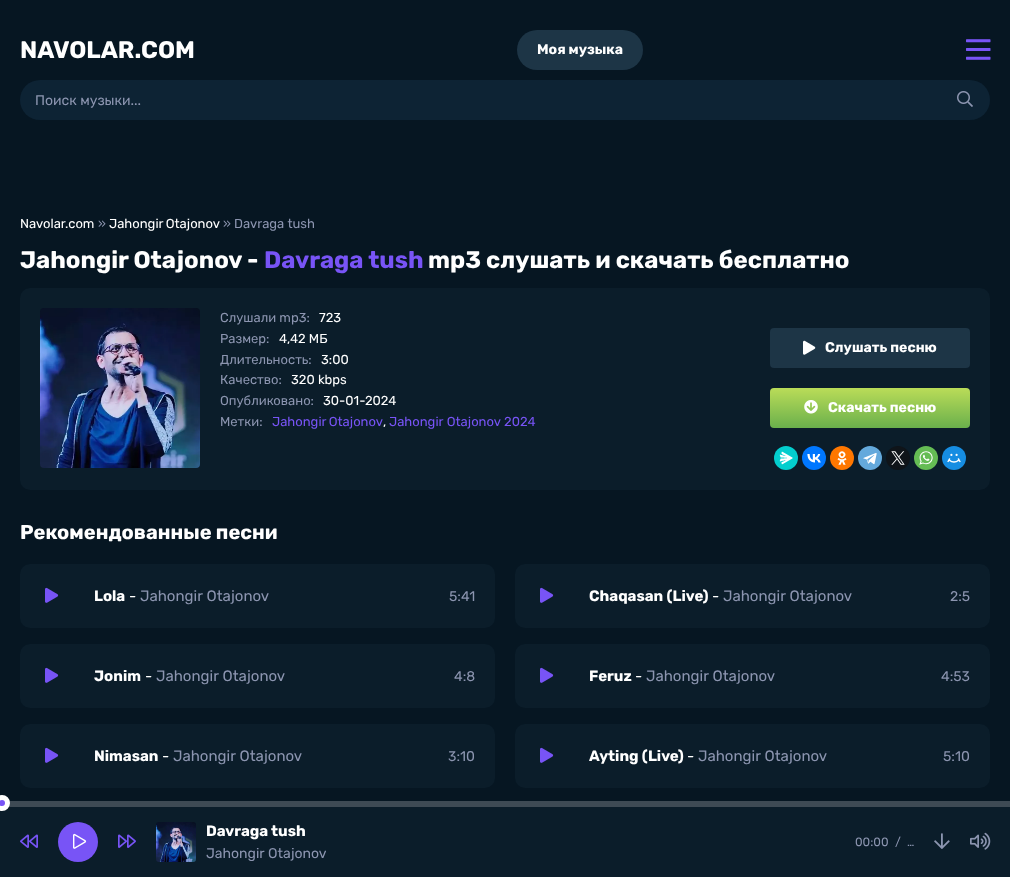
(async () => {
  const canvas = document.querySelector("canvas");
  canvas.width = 1010;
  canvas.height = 877;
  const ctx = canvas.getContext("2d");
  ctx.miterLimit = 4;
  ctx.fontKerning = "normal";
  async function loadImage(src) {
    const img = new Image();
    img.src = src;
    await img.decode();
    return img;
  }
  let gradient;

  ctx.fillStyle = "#061622";
  ctx.fillRect(0, 0, 1010, 877);
  ctx.fillStyle = "#1d3546";
  ctx.beginPath();
  ctx.roundRect(517, 30, 126, 40, 20);
  ctx.fill();
  ctx.drawImage(await loadImage("img/1.png"), 966, 39, 25, 21);
  ctx.fillStyle = "#0d2334";
  ctx.beginPath();
  ctx.roundRect(20, 80, 970, 40, 20);
  ctx.fill();
  ctx.drawImage(await loadImage("img/2.png"), 957, 91, 16, 16);
  ctx.fillStyle = "#0b1d2a";
  ctx.beginPath();
  ctx.roundRect(20, 288, 970, 202, 10);
  ctx.fill();
  ctx.drawImage(await loadImage("img/3.png"), 40, 308, 160, 160);
  ctx.fillStyle = "#1d3546";
  ctx.beginPath();
  ctx.roundRect(770, 328, 200, 40, 4);
  ctx.fill();
  ctx.drawImage(await loadImage("img/4.png"), 803, 340, 13, 15);
  gradient = ctx.createLinearGradient(870, 388, 870, 428);
  gradient.addColorStop(0, "#badc58");
  gradient.addColorStop(1, "#6ab04c");
  ctx.fillStyle = gradient;
  ctx.beginPath();
  ctx.roundRect(770, 388, 200, 40, 4);
  ctx.fill();
  ctx.drawImage(await loadImage("img/5.png"), 804, 400, 14, 14);
  ctx.fillStyle = "#03cece";
  ctx.beginPath();
  ctx.arc(786, 458, 12, 0, Math.PI * 2);
  ctx.fill();
  ctx.drawImage(await loadImage("img/6.png"), 779, 451, 14, 14);
  ctx.fillStyle = "#0077ff";
  ctx.beginPath();
  ctx.arc(814, 458, 12, 0, Math.PI * 2);
  ctx.fill();
  ctx.drawImage(await loadImage("img/7.png"), 807, 454, 14, 9);
  ctx.fillStyle = "#ff7700";
  ctx.beginPath();
  ctx.arc(842, 458, 12, 0, Math.PI * 2);
  ctx.fill();
  ctx.drawImage(await loadImage("img/8.png"), 837, 451, 10, 14);
  ctx.fillStyle = "#64a9dc";
  ctx.beginPath();
  ctx.arc(870, 458, 12, 0, Math.PI * 2);
  ctx.fill();
  ctx.drawImage(await loadImage("img/9.png"), 863, 453, 14, 12);
  ctx.fillStyle = "#0f1419";
  ctx.beginPath();
  ctx.arc(898, 458, 12, 0, Math.PI * 2);
  ctx.fill();
  ctx.drawImage(await loadImage("img/10.png"), 891, 451, 14, 14);
  ctx.fillStyle = "#65bc54";
  ctx.beginPath();
  ctx.arc(926, 458, 12, 0, Math.PI * 2);
  ctx.fill();
  ctx.drawImage(await loadImage("img/11.png"), 919, 451, 14, 14);
  ctx.fillStyle = "#168de2";
  ctx.beginPath();
  ctx.arc(954, 458, 12, 0, Math.PI * 2);
  ctx.fill();
  ctx.drawImage(await loadImage("img/12.png"), 947, 453, 14, 10);
  ctx.fillStyle = "#0b1d2a";
  ctx.beginPath();
  ctx.roundRect(20, 564, 475, 64, 10);
  ctx.fill();
  ctx.drawImage(await loadImage("img/13.png"), 45, 587, 14, 16);
  ctx.beginPath();
  ctx.roundRect(515, 564, 475, 64, 10);
  ctx.fill();
  ctx.drawImage(await loadImage("img/13.png"), 540, 587, 14, 16);
  ctx.beginPath();
  ctx.roundRect(20, 644, 475, 64, 10);
  ctx.fill();
  ctx.drawImage(await loadImage("img/13.png"), 45, 667, 14, 16);
  ctx.beginPath();
  ctx.roundRect(515, 644, 475, 64, 10);
  ctx.fill();
  ctx.drawImage(await loadImage("img/13.png"), 540, 667, 14, 16);
  ctx.beginPath();
  ctx.roundRect(20, 724, 475, 64, 10);
  ctx.fill();
  ctx.drawImage(await loadImage("img/13.png"), 45, 747, 14, 16);
  ctx.beginPath();
  ctx.roundRect(515, 724, 475, 64, 10);
  ctx.fill();
  ctx.drawImage(await loadImage("img/13.png"), 540, 747, 14, 16);
  ctx.fillRect(0, 807, 1010, 70);
  ctx.fillStyle = "#3e4a54";
  ctx.fillRect(0, 801, 1010, 6);
  ctx.fillStyle = "#7854f6";
  ctx.beginPath();
  ctx.arc(2, 803, 5.5, 0, Math.PI * 2);
  ctx.fill();
  ctx.strokeStyle = "#ffffff";
  ctx.lineWidth = 5;
  ctx.stroke();
  ctx.drawImage(await loadImage("img/14.png"), 20, 834, 18, 14);
  ctx.beginPath();
  ctx.arc(78, 842, 20, 0, Math.PI * 2);
  ctx.fill();
  ctx.drawImage(await loadImage("img/15.png"), 73, 833, 14, 16);
  ctx.drawImage(await loadImage("img/16.png"), 118, 834, 18, 14);
  ctx.drawImage(await loadImage("img/17.png"), 156, 822, 40, 40);
  ctx.drawImage(await loadImage("img/18.png"), 934, 833, 16, 16);
  ctx.drawImage(await loadImage("img/19.png"), 970, 832, 21, 18);
  ctx.font = "bold 24px Rubik";
  ctx.fillStyle = "#ffffff";
  ctx.fillText("NAVOLAR.COM", 20, 58);
  ctx.font = "bold 14px Rubik";
  ctx.fillText("Моя музыка", 537, 54);
  ctx.font = "14px Rubik";
  ctx.fillStyle = "#8c95b0";
  ctx.fillText("Поиск музыки...", 35, 105);
  ctx.font = "13px Rubik";
  ctx.fillStyle = "#ffffff";
  ctx.fillText("Navolar.com", 20, 228);
  ctx.fillStyle = "#8c95b0";
  ctx.fillText("»", 98, 228);
  ctx.wordSpacing = "-1px";
  ctx.fillStyle = "#ffffff";
  ctx.fillText("Jahongir Otajonov", 109, 228);
  ctx.wordSpacing = "0px";
  ctx.fillStyle = "#8c95b0";
  ctx.fillText("» Davraga tush", 223, 228);
  ctx.font = "bold 24px Rubik";
  ctx.fillStyle = "#ffffff";
  ctx.fillText("Jahongir Otajonov -", 20, 268);
  ctx.fillStyle = "#7854f6";
  ctx.fillText("Davraga tush", 264, 268);
  ctx.fillStyle = "#ffffff";
  ctx.fillText("mp3 слушать и скачать бесплатно", 428, 268);
  ctx.font = "13px Rubik";
  ctx.fillStyle = "#8c95b0";
  ctx.fillText("Слушали mp3:", 220, 322);
  ctx.fillStyle = "#ffffff";
  ctx.fillText("723", 319, 322);
  ctx.fillStyle = "#8c95b0";
  ctx.fillText("Размер:", 220, 343);
  ctx.fillStyle = "#ffffff";
  ctx.fillText("4,42 МБ", 279, 343);
  ctx.fillStyle = "#8c95b0";
  ctx.fillText("Длительность:", 220, 364);
  ctx.fillStyle = "#ffffff";
  ctx.fillText("3:00", 321, 364);
  ctx.fillStyle = "#8c95b0";
  ctx.fillText("Качество:", 220, 384);
  ctx.fillStyle = "#ffffff";
  ctx.fillText("320 kbps", 291, 384);
  ctx.fillStyle = "#8c95b0";
  ctx.fillText("Опубликовано:", 220, 405);
  ctx.fillStyle = "#ffffff";
  ctx.fillText("30-01-2024", 323, 405);
  ctx.fillStyle = "#8c95b0";
  ctx.fillText("Метки:", 220, 426);
  ctx.wordSpacing = "-1px";
  ctx.fillStyle = "#7854f6";
  ctx.fillText("Jahongir Otajonov", 272, 426);
  ctx.wordSpacing = "0px";
  ctx.fillStyle = "#ffffff";
  ctx.fillText(",", 383, 426);
  ctx.fillStyle = "#7854f6";
  ctx.fillText("Jahongir Otajonov 2024", 389, 426);
  ctx.font = "bold 14px Rubik";
  ctx.fillStyle = "#ffffff";
  ctx.fillText("Слушать песню", 825, 352);
  ctx.fillText("Скачать песню", 828, 412);
  ctx.font = "bold 20px Rubik";
  ctx.fillText("Рекомендованные песни", 20, 539);
  ctx.font = "bold 15px Rubik";
  ctx.fillText("Lola", 94, 601);
  ctx.font = "15px Rubik";
  ctx.fillText("-", 129, 601);
  ctx.fillStyle = "#8c95b0";
  ctx.fillText("Jahongir Otajonov", 140, 601);
  ctx.font = "14px Rubik";
  ctx.fillText("5:41", 449, 601);
  ctx.font = "bold 15px Rubik";
  ctx.fillStyle = "#ffffff";
  ctx.fillText("Chaqasan (Live)", 589, 601);
  ctx.font = "15px Rubik";
  ctx.fillText("-", 712, 601);
  ctx.fillStyle = "#8c95b0";
  ctx.fillText("Jahongir Otajonov", 723, 601);
  ctx.font = "14px Rubik";
  ctx.fillText("2:5", 950, 601);
  ctx.font = "bold 15px Rubik";
  ctx.fillStyle = "#ffffff";
  ctx.fillText("Jonim", 94, 681);
  ctx.font = "15px Rubik";
  ctx.fillText("-", 145, 681);
  ctx.fillStyle = "#8c95b0";
  ctx.fillText("Jahongir Otajonov", 156, 681);
  ctx.font = "14px Rubik";
  ctx.fillText("4:8", 454, 681);
  ctx.font = "bold 15px Rubik";
  ctx.fillStyle = "#ffffff";
  ctx.fillText("Feruz", 589, 681);
  ctx.font = "15px Rubik";
  ctx.fillText("-", 635, 681);
  ctx.fillStyle = "#8c95b0";
  ctx.fillText("Jahongir Otajonov", 646, 681);
  ctx.font = "14px Rubik";
  ctx.fillText("4:53", 941, 681);
  ctx.font = "bold 15px Rubik";
  ctx.fillStyle = "#ffffff";
  ctx.fillText("Nimasan", 94, 761);
  ctx.font = "15px Rubik";
  ctx.fillText("-", 162, 761);
  ctx.fillStyle = "#8c95b0";
  ctx.fillText("Jahongir Otajonov", 173, 761);
  ctx.font = "14px Rubik";
  ctx.fillText("3:10", 448, 761);
  ctx.font = "bold 15px Rubik";
  ctx.fillStyle = "#ffffff";
  ctx.fillText("Ayting (Live)", 589, 761);
  ctx.font = "15px Rubik";
  ctx.fillText("-", 687, 761);
  ctx.fillStyle = "#8c95b0";
  ctx.fillText("Jahongir Otajonov", 698, 761);
  ctx.font = "14px Rubik";
  ctx.fillText("5:10", 943, 761);
  ctx.font = "bold 15px Rubik";
  ctx.fillStyle = "#ffffff";
  ctx.fillText("Davraga tush", 206, 836);
  ctx.font = "14px Rubik";
  ctx.fillStyle = "#8c95b0";
  ctx.fillText("Jahongir Otajonov", 206, 858);
  ctx.font = "12px Rubik";
  for (const [text, x, y] of [
    ["00:00", 855, 846],
    ["/", 895, 846],
    ["…", 907, 846],
  ]) {
    ctx.fillText(text, x, y);
  }
})();
